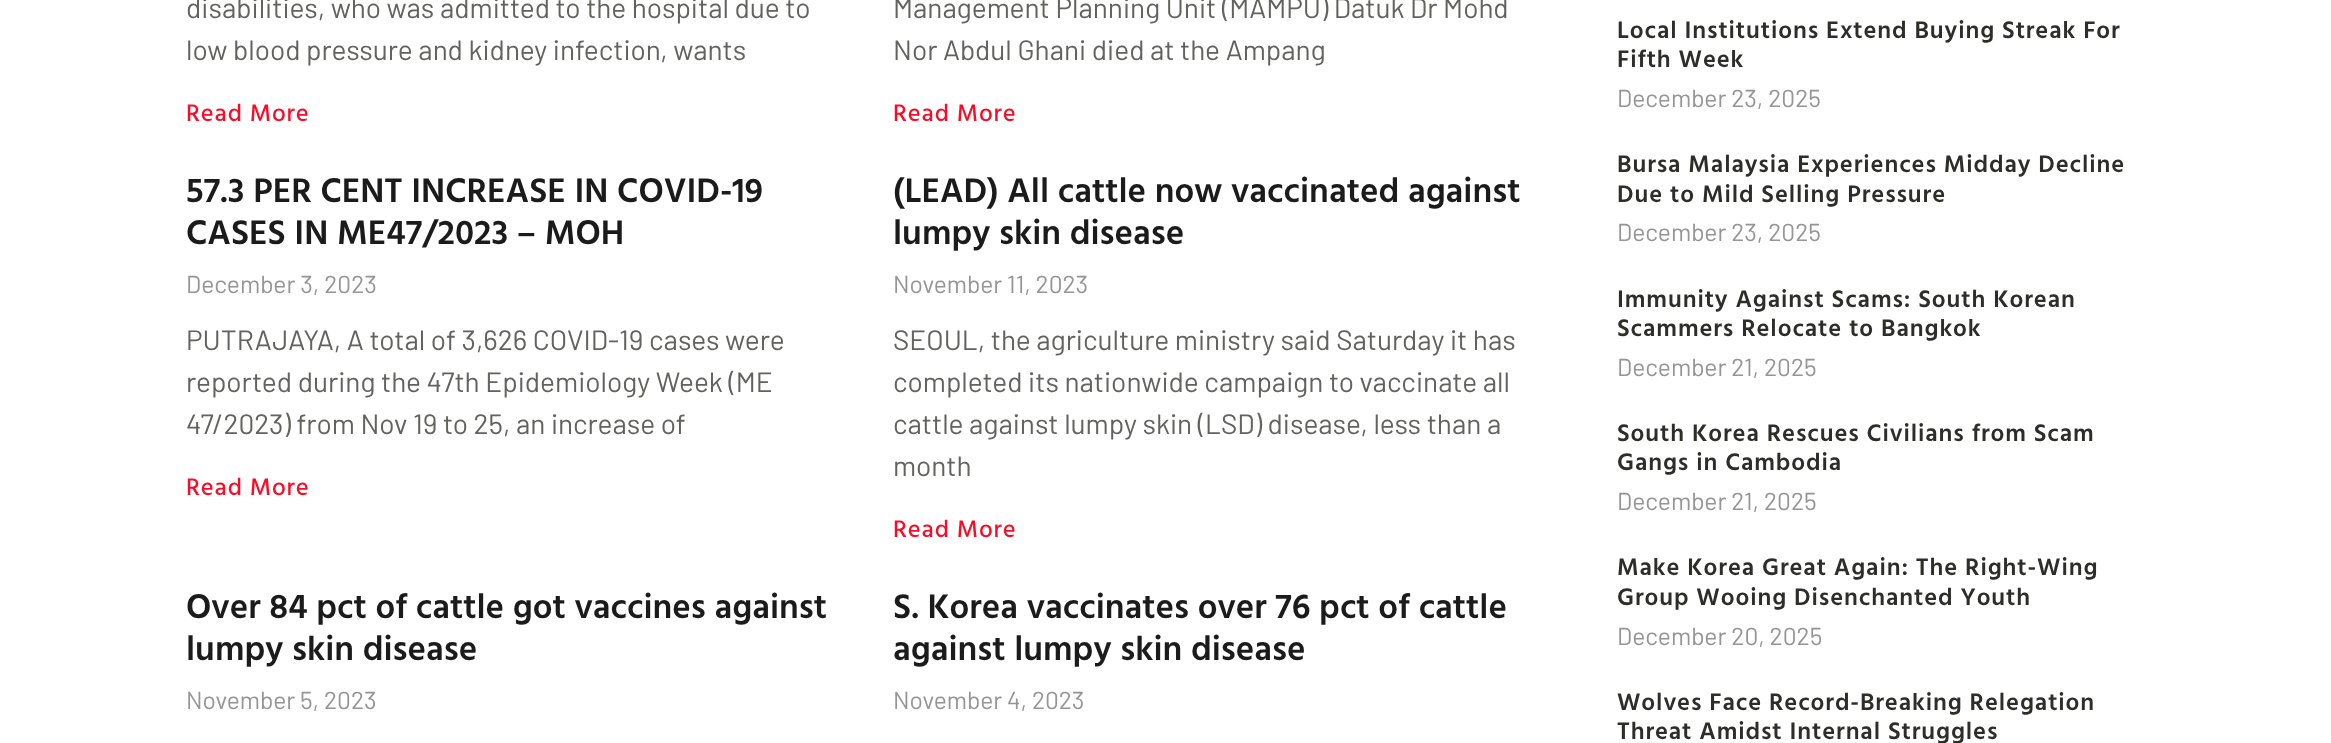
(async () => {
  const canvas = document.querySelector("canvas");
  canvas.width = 2331;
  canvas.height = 743;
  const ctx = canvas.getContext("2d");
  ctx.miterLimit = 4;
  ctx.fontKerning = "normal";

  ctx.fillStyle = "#ffffff";
  ctx.fillRect(0, 0, 2331, 743);
  ctx.font = "28px Barlow";
  ctx.fillStyle = "#62625f";
  ctx.fillText("disabilities, who was admitted to the hospital due to", 186, 18);
  ctx.fillText("low blood pressure and kidney infection, wants", 186, 60);
  ctx.letterSpacing = "0.9px";
  ctx.font = "500 24.5px Hind Vadodara";
  ctx.fillStyle = "#f70d28";
  ctx.fillText("Read More", 186, 121);
  ctx.letterSpacing = "0px";
  ctx.font = "28px Barlow";
  ctx.fillStyle = "#62625f";
  ctx.fillText("Management Planning Unit (MAMPU) Datuk Dr Mohd", 893, 18);
  ctx.fillText("Nor Abdul Ghani died at the Ampang", 893, 60);
  ctx.letterSpacing = "0.9px";
  ctx.font = "500 24.5px Hind Vadodara";
  ctx.fillStyle = "#f70d28";
  ctx.fillText("Read More", 893, 121);
  ctx.letterSpacing = "0px";
  ctx.font = "600 35px Hind Vadodara";
  ctx.fillStyle = "#1b1b1b";
  ctx.fillText("57.3 PER CENT INCREASE IN COVID-19", 186, 202);
  ctx.fillText("CASES IN ME47/2023 – MOH", 186, 244);
  ctx.font = "24.5px Barlow";
  ctx.fillStyle = "#959595";
  ctx.fillText("December 3, 2023", 186, 293);
  ctx.font = "28px Barlow";
  ctx.fillStyle = "#62625f";
  for (const [text, x, y] of [
    ["PUTRAJAYA, A total of 3,626 COVID-19 cases were", 186, 350],
    ["reported during the 47th Epidemiology Week (ME", 186, 392],
    ["47/2023) from Nov 19 to 25, an increase of", 186, 434],
  ]) {
    ctx.fillText(text, x, y);
  }
  ctx.letterSpacing = "0.9px";
  ctx.font = "500 24.5px Hind Vadodara";
  ctx.fillStyle = "#f70d28";
  ctx.fillText("Read More", 186, 495);
  ctx.letterSpacing = "0px";
  ctx.font = "600 35px Hind Vadodara";
  ctx.fillStyle = "#1b1b1b";
  ctx.fillText("(LEAD) All cattle now vaccinated against", 893, 202);
  ctx.fillText("lumpy skin disease", 893, 244);
  ctx.font = "24.5px Barlow";
  ctx.fillStyle = "#959595";
  ctx.fillText("November 11, 2023", 893, 293);
  ctx.font = "28px Barlow";
  ctx.fillStyle = "#62625f";
  for (const [text, x, y] of [
    ["SEOUL, the agriculture ministry said Saturday it has", 893, 350],
    ["completed its nationwide campaign to vaccinate all", 893, 392],
    ["cattle against lumpy skin (LSD) disease, less than a", 893, 434],
    ["month", 893, 476],
  ]) {
    ctx.fillText(text, x, y);
  }
  ctx.letterSpacing = "0.9px";
  ctx.font = "500 24.5px Hind Vadodara";
  ctx.fillStyle = "#f70d28";
  ctx.fillText("Read More", 893, 537);
  ctx.letterSpacing = "0px";
  ctx.font = "600 35px Hind Vadodara";
  ctx.fillStyle = "#1b1b1b";
  ctx.fillText("Over 84 pct of cattle got vaccines against", 186, 618);
  ctx.fillText("lumpy skin disease", 186, 660);
  ctx.font = "24.5px Barlow";
  ctx.fillStyle = "#959595";
  ctx.fillText("November 5, 2023", 186, 709);
  ctx.font = "600 35px Hind Vadodara";
  ctx.fillStyle = "#1b1b1b";
  ctx.fillText("S. Korea vaccinates over 76 pct of cattle", 893, 618);
  ctx.fillText("against lumpy skin disease", 893, 660);
  ctx.font = "24.5px Barlow";
  ctx.fillStyle = "#959595";
  ctx.fillText("November 4, 2023", 893, 709);
  ctx.letterSpacing = "0.9px";
  ctx.font = "600 24.5px Hind Vadodara";
  ctx.fillStyle = "#2d2d2a";
  ctx.fillText("Local Institutions Extend Buying Streak For", 1617, 38);
  ctx.fillText("Fifth Week", 1617, 67);
  ctx.letterSpacing = "0px";
  ctx.font = "24.5px Barlow";
  ctx.fillStyle = "#959595";
  ctx.fillText("December 23, 2025", 1617, 107);
  ctx.letterSpacing = "0.9px";
  ctx.font = "600 24.5px Hind Vadodara";
  ctx.fillStyle = "#2d2d2a";
  ctx.fillText("Bursa Malaysia Experiences Midday Decline", 1617, 172);
  ctx.fillText("Due to Mild Selling Pressure", 1617, 202);
  ctx.letterSpacing = "0px";
  ctx.font = "24.5px Barlow";
  ctx.fillStyle = "#959595";
  ctx.fillText("December 23, 2025", 1617, 241);
  ctx.letterSpacing = "0.9px";
  ctx.font = "600 24.5px Hind Vadodara";
  ctx.fillStyle = "#2d2d2a";
  ctx.fillText("Immunity Against Scams: South Korean", 1617, 307);
  ctx.fillText("Scammers Relocate to Bangkok", 1617, 336);
  ctx.letterSpacing = "0px";
  ctx.font = "24.5px Barlow";
  ctx.fillStyle = "#959595";
  ctx.fillText("December 21, 2025", 1617, 376);
  ctx.letterSpacing = "0.9px";
  ctx.font = "600 24.5px Hind Vadodara";
  ctx.fillStyle = "#2d2d2a";
  ctx.fillText("South Korea Rescues Civilians from Scam", 1617, 441);
  ctx.fillText("Gangs in Cambodia", 1617, 470);
  ctx.letterSpacing = "0px";
  ctx.font = "24.5px Barlow";
  ctx.fillStyle = "#959595";
  ctx.fillText("December 21, 2025", 1617, 510);
  ctx.letterSpacing = "0.9px";
  ctx.font = "600 24.5px Hind Vadodara";
  ctx.fillStyle = "#2d2d2a";
  ctx.fillText("Make Korea Great Again: The Right-Wing", 1617, 575);
  ctx.fillText("Group Wooing Disenchanted Youth", 1617, 605);
  ctx.letterSpacing = "0px";
  ctx.font = "24.5px Barlow";
  ctx.fillStyle = "#959595";
  ctx.fillText("December 20, 2025", 1617, 645);
  ctx.letterSpacing = "0.9px";
  ctx.font = "600 24.5px Hind Vadodara";
  ctx.fillStyle = "#2d2d2a";
  ctx.fillText("Wolves Face Record-Breaking Relegation", 1617, 710);
  ctx.fillText("Threat Amidst Internal Struggles", 1617, 739);
})();
